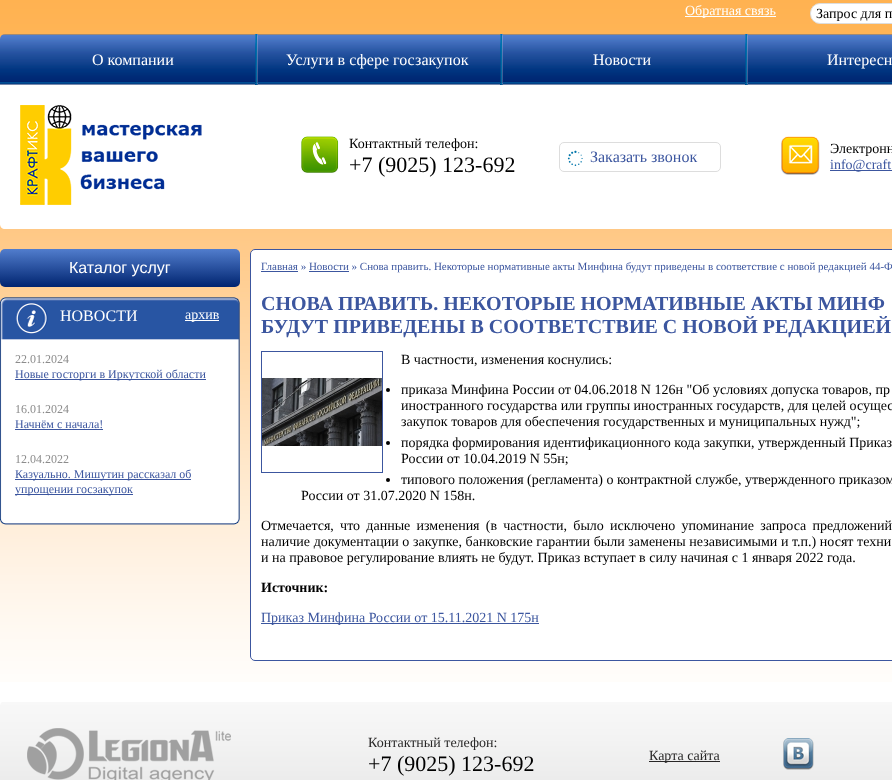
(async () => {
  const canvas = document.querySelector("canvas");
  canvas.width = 892;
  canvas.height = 780;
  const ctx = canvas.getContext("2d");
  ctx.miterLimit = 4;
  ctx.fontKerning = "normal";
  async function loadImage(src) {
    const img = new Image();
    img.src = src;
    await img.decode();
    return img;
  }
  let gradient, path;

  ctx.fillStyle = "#ffffff";
  ctx.fillRect(0, 0, 892, 780);
  ctx.drawImage(await loadImage("img/1.png"), 0, 0, 892, 682);
  ctx.fillRect(685, 16, 91, 1);
  ctx.beginPath();
  ctx.roundRect(810.5, 3.5, 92, 20, 9.5);
  ctx.fill();
  ctx.strokeStyle = "#dddddd";
  ctx.stroke();
  ctx.drawImage(await loadImage("img/2.png"), 0, 34, 892, 51);
  ctx.drawImage(await loadImage("img/3.png"), 255, 34, 3, 51);
  ctx.drawImage(await loadImage("img/3.png"), 500, 34, 3, 51);
  ctx.drawImage(await loadImage("img/3.png"), 745, 34, 3, 51);
  path = new Path2D("M0 85H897V224C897 227 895 229 892 229H5C2 229 0 227 0 224Z");
  ctx.fill(path);
  ctx.drawImage(await loadImage("img/4.png"), 20, 105, 182, 100);
  ctx.drawImage(await loadImage("img/5.png"), 301, 136, 38, 37);
  ctx.beginPath();
  ctx.roundRect(559.5, 142.5, 161, 29, 4.5);
  ctx.stroke();
  ctx.drawImage(await loadImage("img/6.png"), 567, 150, 16, 16);
  ctx.drawImage(await loadImage("img/7.png"), 781, 136, 39, 39);
  ctx.fillStyle = "#3c569f";
  ctx.fillRect(830, 170, 62, 1);
  gradient = ctx.createLinearGradient(120, 249, 120, 287);
  gradient.addColorStop(0, "#517dcd");
  gradient.addColorStop(1, "#002470");
  ctx.fillStyle = gradient;
  ctx.beginPath();
  ctx.roundRect(0, 249, 240, 38, 5);
  ctx.fill();
  ctx.drawImage(await loadImage("img/8.png"), 0, 297, 240, 45);
  ctx.fillStyle = "#ffffff";
  ctx.fillRect(185, 320, 34, 1);
  ctx.drawImage(await loadImage("img/9.png"), 0, 342, 240, 175);
  for (const [x, y, w, h, color] of [
    [15, 379, 191, 1, "#3c569f"],
    [15, 429, 88, 1, "#3c569f"],
    [15, 479, 176, 1, "#3c569f"],
    [15, 494, 118, 1, "#3c569f"],
  ]) {
    ctx.fillStyle = color;
    ctx.fillRect(x, y, w, h);
  }
  ctx.drawImage(await loadImage("img/10.png"), 0, 517, 240, 8);
  ctx.fillStyle = "#ffffff";
  ctx.beginPath();
  ctx.roundRect(250.5, 249.5, 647, 411, 4.5);
  ctx.fill();
  ctx.strokeStyle = "#3c569f";
  ctx.stroke();
  ctx.fillStyle = "#3c569f";
  ctx.fillRect(261, 271, 37, 1);
  ctx.fillRect(309, 271, 40, 1);
  ctx.strokeRect(261.5, 351.5, 121, 121);
  ctx.drawImage(await loadImage("img/11.png"), 262, 378, 120, 68);
  ctx.fillStyle = "#000000";
  ctx.beginPath();
  ctx.arc(388, 390, 2, 0, Math.PI * 2);
  ctx.fill();
  ctx.beginPath();
  ctx.arc(388, 443, 2, 0, Math.PI * 2);
  ctx.fill();
  ctx.beginPath();
  ctx.arc(388, 480, 2, 0, Math.PI * 2);
  ctx.fill();
  ctx.fillStyle = "#3c569f";
  ctx.fillRect(261, 623, 278, 1);
  ctx.drawImage(await loadImage("img/12.png"), 0, 702, 892, 78);
  ctx.drawImage(await loadImage("img/13.png"), 27, 728, 204, 52);
  ctx.fillStyle = "#282727";
  ctx.fillRect(649, 761, 71, 1);
  ctx.drawImage(await loadImage("img/14.png"), 783, 738, 31, 32);
  ctx.font = "14px Liberation Serif";
  ctx.fillStyle = "#ffffff";
  ctx.fillText("Обратная связь", 685, 15);
  ctx.fillStyle = "#000000";
  ctx.fillText("Запрос для п", 816, 18);
  ctx.font = "16px Liberation Serif";
  ctx.fillStyle = "#ffffff";
  for (const [text, x, y] of [
    ["О компании", 92, 65],
    ["Услуги в сфере госзакупок", 286, 65],
    ["Новости", 593, 65],
    ["Интересн", 827, 65],
  ]) {
    ctx.fillText(text, x, y);
  }
  ctx.font = "14px Liberation Serif";
  ctx.fillStyle = "#000000";
  ctx.fillText("Контактный телефон:", 349, 148);
  ctx.font = "22px Liberation Serif";
  ctx.fillText("+7 (9025) 123-692", 349, 172);
  ctx.font = "16px Liberation Serif";
  ctx.fillStyle = "#3c569f";
  ctx.fillText("Заказать звонок", 590, 162);
  ctx.font = "14px Liberation Serif";
  ctx.fillStyle = "#000000";
  ctx.fillText("Электронн", 830, 153);
  ctx.fillStyle = "#3c569f";
  ctx.fillText("info@craft", 830, 169);
  ctx.font = "16px Liberation Sans";
  ctx.fillStyle = "#ffffff";
  ctx.fillText("Каталог услуг", 69, 273);
  ctx.font = "16px Liberation Serif";
  ctx.fillText("НОВОСТИ", 60, 321);
  ctx.font = "14px Liberation Serif";
  ctx.fillText("архив", 185, 319);
  ctx.font = "12px Liberation Serif";
  ctx.fillStyle = "#8c8c8c";
  ctx.fillText("22.01.2024", 15, 363);
  ctx.fillStyle = "#3c569f";
  ctx.fillText("Новые госторги в Иркутской области", 15, 378);
  ctx.fillStyle = "#8c8c8c";
  ctx.fillText("16.01.2024", 15, 413);
  ctx.fillStyle = "#3c569f";
  ctx.fillText("Начнём с начала!", 15, 428);
  ctx.fillStyle = "#8c8c8c";
  ctx.fillText("12.04.2022", 15, 463);
  ctx.fillStyle = "#3c569f";
  ctx.fillText("Казуально. Мишутин рассказал об", 15, 478);
  ctx.fillText("упрощении госзакупок", 15, 493);
  ctx.font = "11px Liberation Serif";
  ctx.fillText("Главная » Новости » Снова править. Некоторые нормативные акты Минфина будут приведены в соответствие с новой редакцией 44-Ф", 261, 270);
  ctx.font = "bold 20px Liberation Serif";
  ctx.fillText("СНОВА ПРАВИТЬ. НЕКОТОРЫЕ НОРМАТИВНЫЕ АКТЫ МИНФ", 261, 310);
  ctx.fillText("БУДУТ ПРИВЕДЕНЫ В СООТВЕТСТВИЕ С НОВОЙ РЕДАКЦИЕЙ", 261, 333);
  ctx.font = "14px Liberation Serif";
  ctx.fillStyle = "#000000";
  for (const [text, x, y] of [
    ["В частности, изменения коснулись:", 401, 364],
    ["приказа Минфина России от 04.06.2018 N 126н \"Об условиях допуска товаров, пр", 401, 394],
    ["иностранного государства или группы иностранных государств, для целей осущес", 401, 410],
    ["закупок товаров для обеспечения государственных и муниципальных нужд\";", 401, 426],
    ["порядка формирования идентификационного кода закупки, утвержденный Приказ", 401, 447],
    ["России от 10.04.2019 N 55н;", 401, 463],
    ["типового положения (регламента) о контрактной службе, утвержденного приказом", 401, 484],
    ["России от 31.07.2020 N 158н.", 301, 500],
  ]) {
    ctx.fillText(text, x, y);
  }
  ctx.wordSpacing = "2.75px";
  ctx.fillText("Отмечается, что данные изменения (в частности, было исключено упоминание запроса предложений", 261, 530);
  ctx.wordSpacing = "0.1px";
  ctx.fillText("наличие документации о закупке, банковские гарантии были заменены независимыми и т.п.) носят техни", 261, 546);
  ctx.wordSpacing = "0px";
  ctx.fillText("и на правовое регулирование влиять не будут. Приказ вступает в силу начиная с 1 января 2022 года.", 261, 562);
  ctx.font = "bold 14px Liberation Serif";
  ctx.fillText("Источник:", 261, 592);
  ctx.font = "14px Liberation Serif";
  ctx.fillStyle = "#3c569f";
  ctx.fillText("Приказ Минфина России от 15.11.2021 N 175н", 261, 622);
  ctx.fillStyle = "#282727";
  ctx.fillText("Контактный телефон:", 368, 747);
  ctx.font = "22px Liberation Serif";
  ctx.fillStyle = "#000000";
  ctx.fillText("+7 (9025) 123-692", 368, 771);
  ctx.font = "14px Liberation Serif";
  ctx.fillStyle = "#282727";
  ctx.fillText("Карта сайта", 649, 760);
})();
